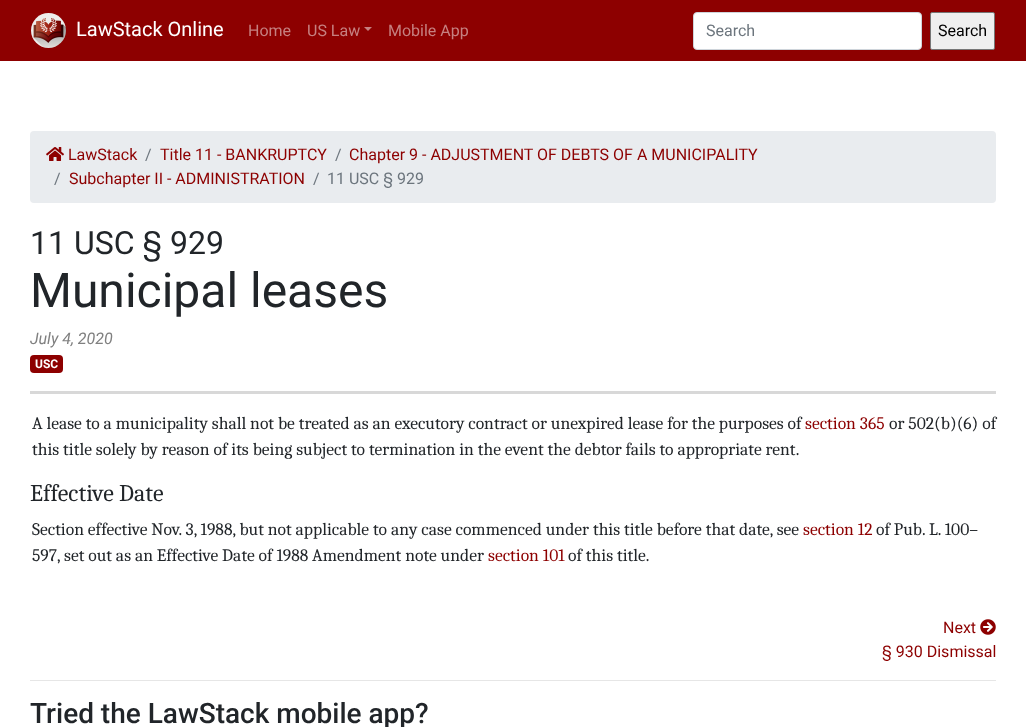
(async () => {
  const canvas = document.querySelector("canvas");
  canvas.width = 1026;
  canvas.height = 727;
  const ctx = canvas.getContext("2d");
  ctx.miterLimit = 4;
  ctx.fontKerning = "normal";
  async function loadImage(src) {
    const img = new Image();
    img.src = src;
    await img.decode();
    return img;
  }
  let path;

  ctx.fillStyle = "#ffffff";
  ctx.fillRect(0, 0, 1026, 727);
  ctx.fillStyle = "#8d0000";
  ctx.fillRect(0, 0, 1026, 61);
  ctx.drawImage(await loadImage("img/1.png"), 31, 13, 35, 35);
  ctx.fillStyle = "#c68080";
  path = new Path2D("M364 27H372L368 31Z");
  ctx.fill(path);
  ctx.fillStyle = "#ffffff";
  ctx.beginPath();
  ctx.roundRect(693.5, 12.5, 228, 37, 3.5);
  ctx.fill();
  ctx.strokeStyle = "#ced4da";
  ctx.stroke();
  ctx.fillStyle = "#efefef";
  ctx.beginPath();
  ctx.roundRect(930.5, 12.5, 64, 37, 1.5);
  ctx.fill();
  ctx.strokeStyle = "#767676";
  ctx.stroke();
  ctx.fillStyle = "#d8d8d8";
  ctx.fillRect(30, 391, 966, 3);
  ctx.fillStyle = "#e9ecef";
  ctx.beginPath();
  ctx.roundRect(30, 131, 966, 72, 4);
  ctx.fill();
  ctx.drawImage(await loadImage("img/2.png"), 46, 147, 18, 14);
  ctx.fillStyle = "#8d0000";
  ctx.beginPath();
  ctx.roundRect(30, 355, 33, 18, 4);
  ctx.fill();
  ctx.drawImage(await loadImage("img/3.png"), 980, 619, 16, 16);
  ctx.fillStyle = "#e6e6e6";
  ctx.fillRect(30, 680, 966, 1);
  ctx.font = "20px Roboto";
  ctx.fillStyle = "#ffffff";
  ctx.fillText("LawStack Online", 76, 36);
  ctx.font = "16px Roboto";
  ctx.fillStyle = "#c68080";
  for (const [text, x, y] of [
    ["Home", 248, 36],
    ["US Law", 307, 36],
    ["Mobile App", 388, 36],
  ]) {
    ctx.fillText(text, x, y);
  }
  ctx.fillStyle = "#6c757d";
  ctx.fillText("Search", 706, 36);
  ctx.fillStyle = "#000000";
  ctx.fillText("Search", 938, 36);
  ctx.fillStyle = "#8d0000";
  ctx.fillText("LawStack", 68, 160);
  ctx.fillStyle = "#6c757d";
  ctx.fillText("/", 145, 160);
  ctx.fillStyle = "#8d0000";
  ctx.fillText("Title 11 - BANKRUPTCY", 160, 160);
  ctx.fillStyle = "#6c757d";
  ctx.fillText("/", 335, 160);
  ctx.fillStyle = "#8d0000";
  ctx.fillText("Chapter 9 - ADJUSTMENT OF DEBTS OF A MUNICIPALITY", 349, 160);
  ctx.fillStyle = "#6c757d";
  ctx.fillText("/", 54, 184);
  ctx.fillStyle = "#8d0000";
  ctx.fillText("Subchapter II - ADMINISTRATION", 69, 184);
  ctx.fillStyle = "#6c757d";
  ctx.fillText("/", 313, 184);
  ctx.fillText("11 USC § 929", 327, 184);
  ctx.font = "32px Roboto";
  ctx.fillStyle = "#212529";
  ctx.fillText("11 USC § 929", 30, 254);
  ctx.font = "48px Roboto";
  ctx.fillText("Municipal leases", 30, 307);
  ctx.font = "italic 16px Roboto";
  ctx.fillStyle = "#808080";
  ctx.fillText("July 4, 2020", 30, 344);
  ctx.font = "bold 12px Roboto";
  ctx.fillStyle = "#ffffff";
  ctx.fillText("USC", 35, 368);
  ctx.font = "17.6px Caladea";
  ctx.fillStyle = "#212529";
  ctx.fillText("A lease to a municipality shall not be treated as an executory contract or unexpired lease for the purposes of", 32, 429);
  ctx.fillStyle = "#8d0000";
  ctx.fillText("section 365", 805, 429);
  ctx.fillStyle = "#212529";
  ctx.fillText("or 502(b)(6) of", 889, 429);
  ctx.fillText("this title solely by reason of its being subject to termination in the event the debtor fails to appropriate rent.", 32, 455);
  ctx.font = "24px Caladea";
  ctx.fillText("Effective Date", 30, 501);
  ctx.font = "17.6px Caladea";
  ctx.fillText("Section effective Nov. 3, 1988, but not applicable to any case commenced under this title before that date, see", 32, 535);
  ctx.fillStyle = "#8d0000";
  ctx.fillText("section 12", 803, 535);
  ctx.fillStyle = "#212529";
  ctx.fillText("of Pub. L. 100–", 876, 535);
  ctx.fillText("597, set out as an Effective Date of 1988 Amendment note under", 32, 561);
  ctx.fillStyle = "#8d0000";
  ctx.fillText("section 101", 488, 561);
  ctx.fillStyle = "#212529";
  ctx.fillText("of this title.", 568, 561);
  ctx.font = "16px Roboto";
  ctx.fillStyle = "#8d0000";
  ctx.fillText("Next", 943, 633);
  ctx.fillText("§ 930 Dismissal", 882, 657);
  ctx.font = "500 28px Roboto";
  ctx.fillStyle = "#212529";
  ctx.fillText("Tried the LawStack mobile app?", 30, 723);
})();
